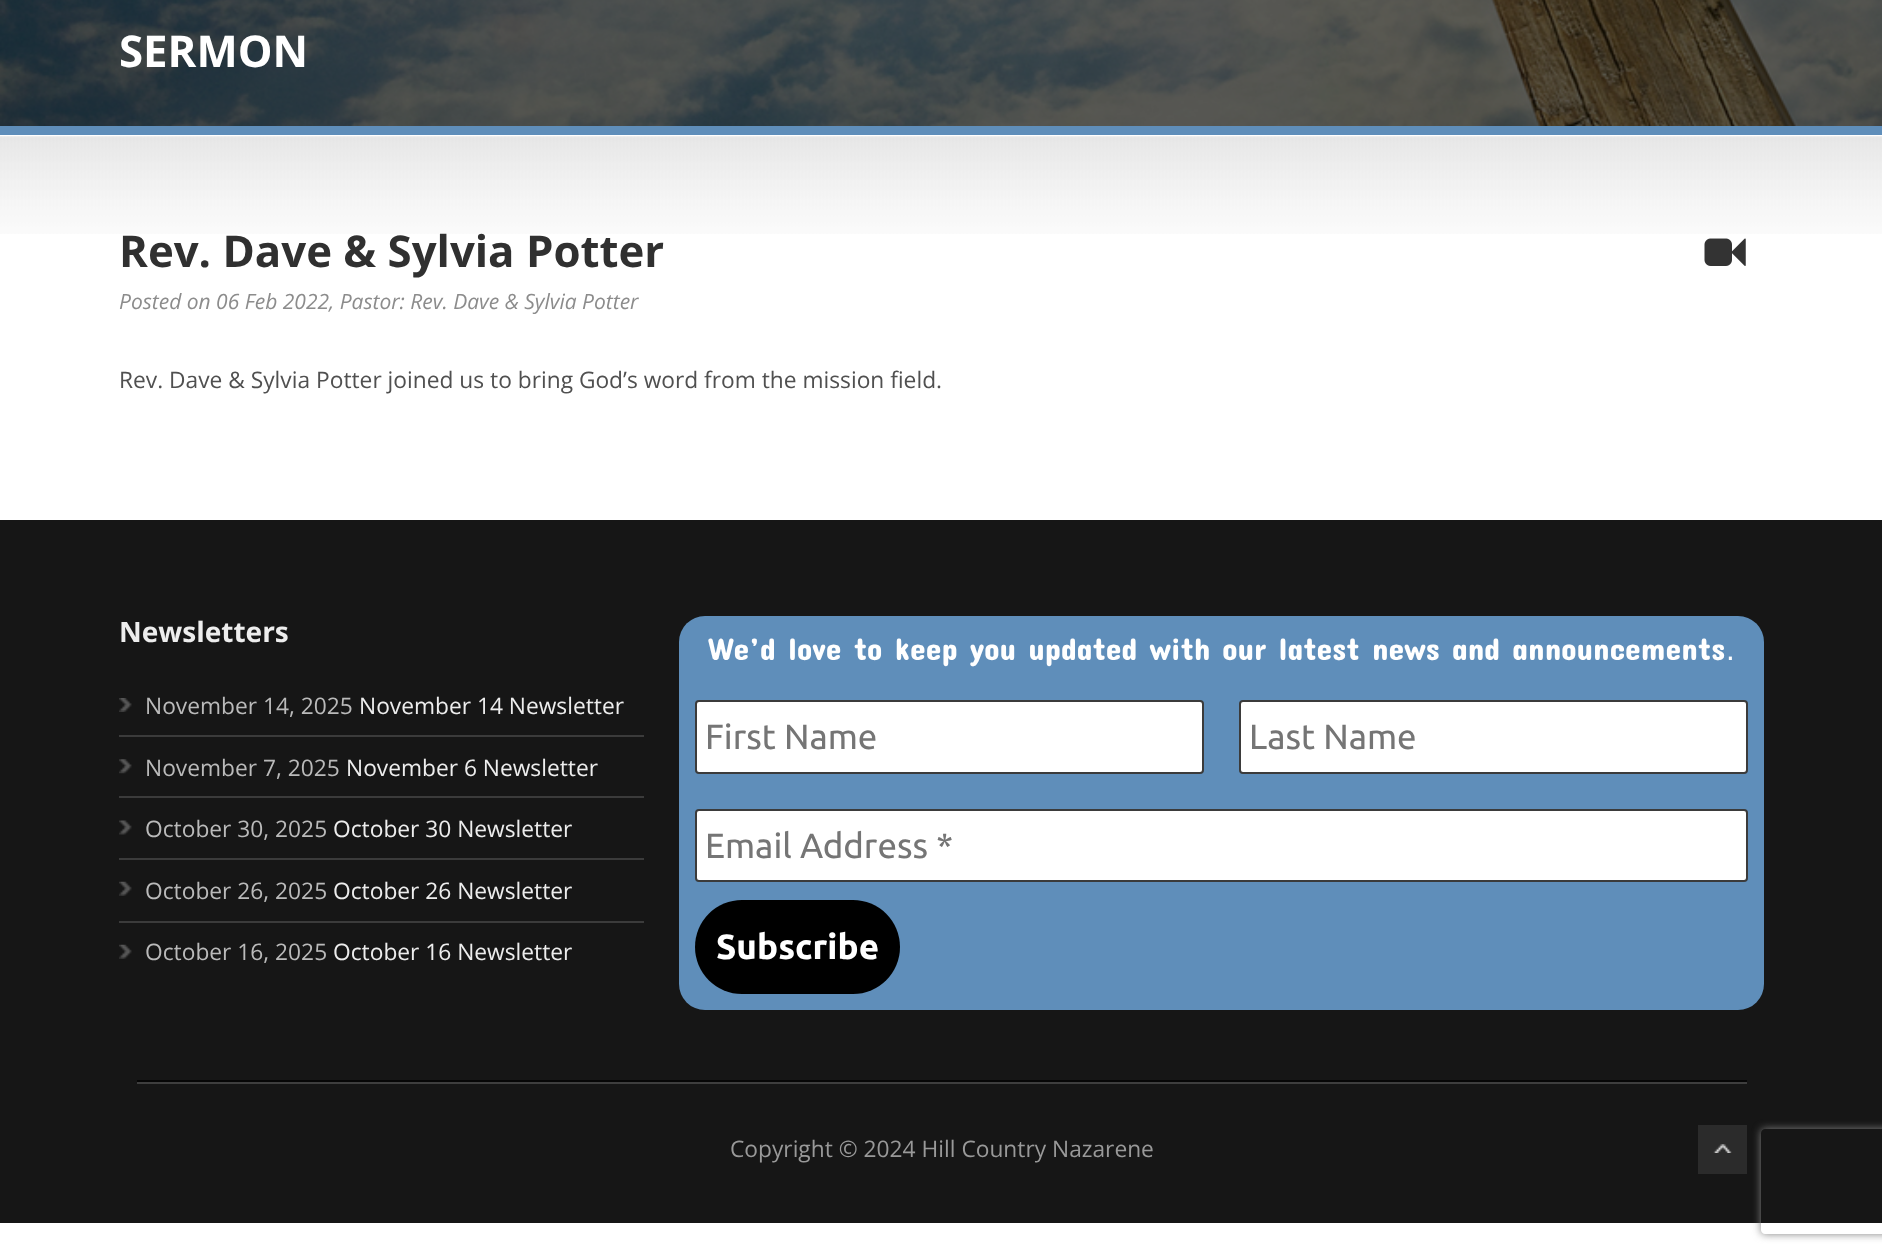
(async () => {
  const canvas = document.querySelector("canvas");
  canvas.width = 1882;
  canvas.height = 1257;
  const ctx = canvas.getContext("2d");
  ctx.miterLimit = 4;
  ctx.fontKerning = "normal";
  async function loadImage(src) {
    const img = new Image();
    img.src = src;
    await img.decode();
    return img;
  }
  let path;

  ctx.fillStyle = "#ffffff";
  ctx.fillRect(0, 0, 1882, 1257);
  ctx.drawImage(await loadImage("img/1.png"), 0, 0, 1882, 126);
  ctx.fillStyle = "#5f8eba";
  ctx.fillRect(0, 126, 1882, 9);
  ctx.drawImage(await loadImage("img/2.png"), 0, 136, 1882, 98);
  ctx.drawImage(await loadImage("img/3.png"), 1704, 238, 42, 28);
  ctx.fillStyle = "#161616";
  ctx.fillRect(0, 520, 1882, 703);
  ctx.drawImage(await loadImage("img/4.png"), 119, 698, 13, 14);
  ctx.fillStyle = "#3b3b3b";
  ctx.fillRect(119, 735, 525, 2);
  ctx.drawImage(await loadImage("img/5.png"), 119, 759, 13, 15);
  ctx.fillRect(119, 796, 525, 2);
  ctx.drawImage(await loadImage("img/6.png"), 119, 820, 13, 15);
  ctx.fillRect(119, 858, 525, 2);
  ctx.drawImage(await loadImage("img/7.png"), 119, 881, 13, 15);
  ctx.fillRect(119, 921, 525, 2);
  ctx.drawImage(await loadImage("img/7.png"), 119, 944, 13, 15);
  ctx.fillStyle = "#5f8eba";
  ctx.beginPath();
  ctx.roundRect(679, 616, 1085, 394, 26);
  ctx.fill();
  ctx.fillStyle = "#ffffff";
  ctx.beginPath();
  ctx.roundRect(696, 701, 507, 72, 3);
  ctx.fill();
  ctx.strokeStyle = "#3b3b3b";
  ctx.lineWidth = 2;
  ctx.stroke();
  ctx.beginPath();
  ctx.roundRect(1240, 701, 507, 72, 3);
  ctx.fill();
  ctx.stroke();
  ctx.beginPath();
  ctx.roundRect(696, 810, 1051, 71, 3);
  ctx.fill();
  ctx.stroke();
  ctx.fillStyle = "#000000";
  ctx.beginPath();
  ctx.roundRect(695, 900, 205, 94, 47);
  ctx.fill();
  ctx.save();
  path = new Path2D("M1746 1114H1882V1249H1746ZM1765 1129H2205C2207 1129 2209 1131 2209 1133V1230C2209 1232 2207 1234 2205 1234H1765C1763 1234 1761 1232 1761 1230V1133C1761 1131 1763 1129 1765 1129Z");
  ctx.clip(path, "evenodd");
  ctx.fillStyle = "#808080";
  ctx.filter = "blur(4.5px)";
  ctx.beginPath();
  ctx.roundRect(1761, 1129, 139, 105, 4);
  ctx.fill();
  ctx.filter = "none";
  ctx.restore();
  for (const [x, y, w, h, color] of [
    [137, 1080, 1610, 2, "#060606"],
    [137, 1082, 1610, 2, "#3e3e3e"],
    [1698, 1125, 49, 49, "#2b2b2b"],
  ]) {
    ctx.fillStyle = color;
    ctx.fillRect(x, y, w, h);
  }
  ctx.drawImage(await loadImage("img/8.png"), 1713, 1144, 19, 9);
  ctx.font = "bold 43.75px Open Sans";
  ctx.fillStyle = "#ffffff";
  ctx.fillText("SERMON", 119, 67);
  ctx.fillStyle = "#303030";
  ctx.fillText("Rev. Dave & Sylvia Potter", 119, 267);
  ctx.font = "italic 21px Open Sans";
  ctx.fillStyle = "#8c8c8c";
  ctx.fillText("Posted on 06 Feb 2022, Pastor: Rev. Dave & Sylvia Potter", 119, 309);
  ctx.font = "22.75px Open Sans";
  ctx.fillStyle = "#505050";
  ctx.fillText("Rev. Dave & Sylvia Potter joined us to bring God’s word from the mission field.", 119, 388);
  ctx.font = "bold 28px Open Sans";
  ctx.fillStyle = "#ededed";
  ctx.fillText("Newsletters", 119, 642);
  ctx.font = "22.75px Open Sans";
  ctx.fillStyle = "#bababa";
  ctx.fillText("November 14, 2025", 145, 714);
  ctx.fillStyle = "#ededed";
  ctx.fillText("November 14 Newsletter", 359, 714);
  ctx.fillStyle = "#bababa";
  ctx.fillText("November 7, 2025", 145, 776);
  ctx.fillStyle = "#ededed";
  ctx.fillText("November 6 Newsletter", 346, 776);
  ctx.fillStyle = "#bababa";
  ctx.fillText("October 30, 2025", 145, 837);
  ctx.fillStyle = "#ededed";
  ctx.fillText("October 30 Newsletter", 333, 837);
  ctx.fillStyle = "#bababa";
  ctx.fillText("October 26, 2025", 145, 899);
  ctx.fillStyle = "#ededed";
  ctx.fillText("October 26 Newsletter", 333, 899);
  ctx.fillStyle = "#bababa";
  ctx.fillText("October 16, 2025", 145, 960);
  ctx.fillStyle = "#ededed";
  ctx.fillText("October 16 Newsletter", 333, 960);
  ctx.font = "31.5px Concert One";
  ctx.fillStyle = "#ffffff";
  ctx.fillText("We’d love to keep you updated with our latest news and announcements", 708, 660);
  ctx.font = "31.5px Liberation Sans";
  ctx.fillText(".", 1726, 660);
  ctx.font = "35px Ubuntu";
  ctx.fillStyle = "#757575";
  for (const [text, x, y] of [
    ["First Name", 705, 749],
    ["Last Name", 1249, 749],
    ["Email Address *", 705, 858],
  ]) {
    ctx.fillText(text, x, y);
  }
  ctx.font = "bold 35px Ubuntu";
  ctx.fillStyle = "#ffffff";
  ctx.fillText("Subscribe", 716, 959);
  ctx.font = "22.75px Open Sans";
  ctx.fillStyle = "#999999";
  ctx.fillText("Copyright © 2024 Hill Country Nazarene", 730, 1157);
})();
